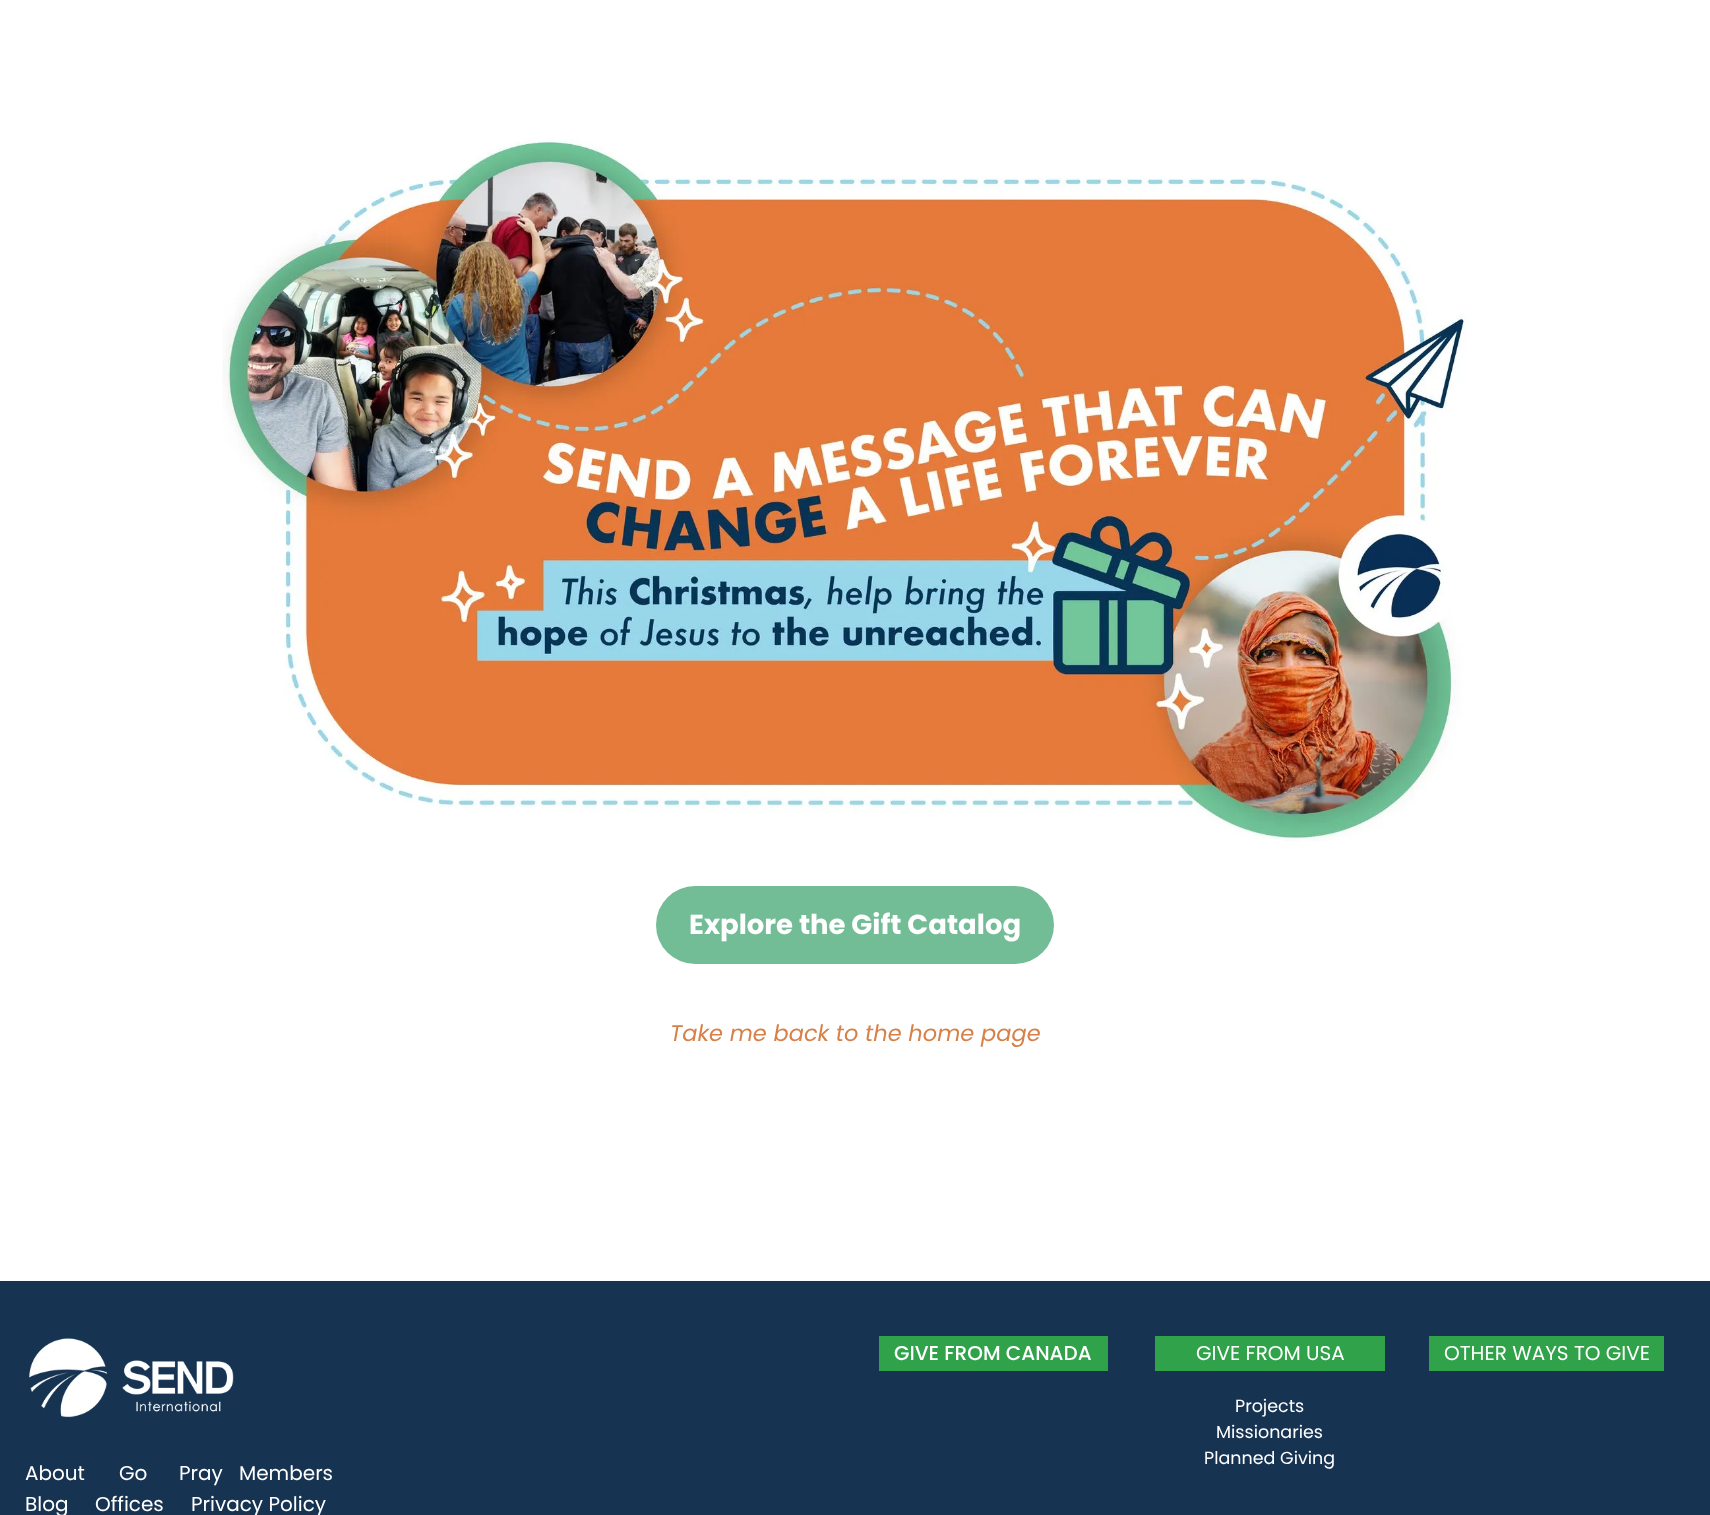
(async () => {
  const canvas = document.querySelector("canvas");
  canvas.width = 1710;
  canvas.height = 1515;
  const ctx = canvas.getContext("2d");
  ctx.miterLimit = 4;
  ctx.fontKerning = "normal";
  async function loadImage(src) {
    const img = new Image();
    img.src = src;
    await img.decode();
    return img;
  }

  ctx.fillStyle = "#ffffff";
  ctx.fillRect(0, 0, 1710, 1515);
  ctx.drawImage(await loadImage("img/1.png"), 222, 138, 1245, 704);
  ctx.fillStyle = "#72bc96";
  ctx.beginPath();
  ctx.roundRect(656, 886, 398, 78, 39);
  ctx.fill();
  for (const [x, y, w, h, color] of [
    [0, 1281, 1710, 234, "#163352"],
    [879, 1336, 229, 35, "#30a249"],
    [1155, 1336, 230, 35, "#30a249"],
    [1429, 1336, 235, 35, "#30a249"],
  ]) {
    ctx.fillStyle = color;
    ctx.fillRect(x, y, w, h);
  }
  ctx.drawImage(await loadImage("img/2.png"), 29, 1338, 205, 80);
  ctx.font = "bold 27.5px Poppins";
  ctx.fillStyle = "#ffffff";
  ctx.fillText("Explore the Gift Catalog", 689, 934);
  ctx.font = "italic 22.5px Poppins";
  ctx.fillStyle = "#d78048";
  ctx.fillText("Take me back to the home page", 670, 1041);
  ctx.font = "500 20px Poppins";
  ctx.fillStyle = "#ffffff";
  ctx.fillText("GIVE FROM CANADA", 894, 1360);
  ctx.font = "20px Poppins";
  ctx.fillText("GIVE FROM USA", 1196, 1360);
  ctx.font = "17.5px Poppins";
  for (const [text, x, y] of [
    ["Projects", 1235, 1412],
    ["Missionaries", 1216, 1438],
    ["Planned Giving", 1204, 1464],
  ]) {
    ctx.fillText(text, x, y);
  }
  ctx.font = "20px Poppins";
  for (const [text, x, y] of [
    ["OTHER WAYS TO GIVE", 1444, 1360],
    ["About", 25, 1480],
    ["Go", 119, 1480],
    ["Pray", 179, 1480],
    ["Members", 239, 1480],
    ["Blog", 25, 1511],
    ["Offices", 95, 1511],
    ["Privacy Policy", 191, 1511],
  ]) {
    ctx.fillText(text, x, y);
  }
})();
